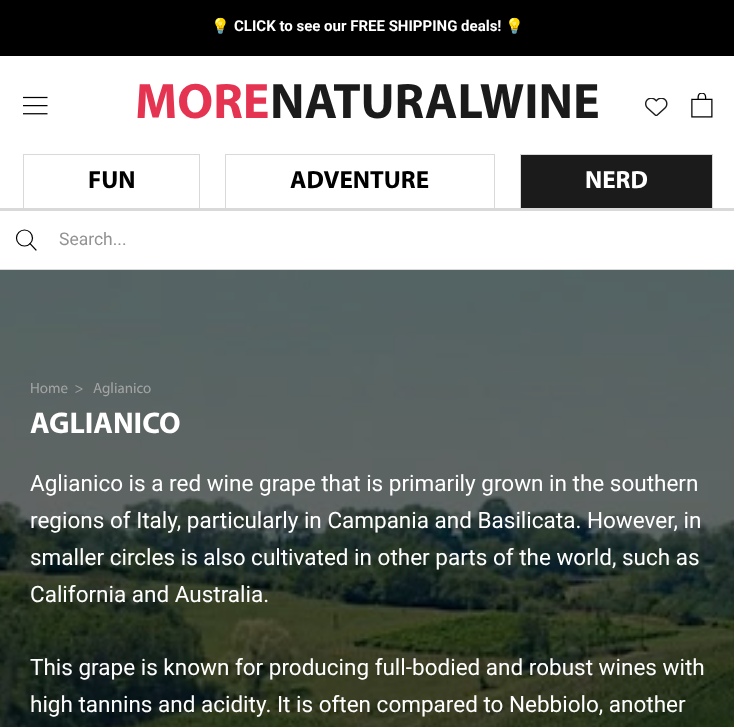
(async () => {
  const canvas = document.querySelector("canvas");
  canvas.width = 734;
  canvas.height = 727;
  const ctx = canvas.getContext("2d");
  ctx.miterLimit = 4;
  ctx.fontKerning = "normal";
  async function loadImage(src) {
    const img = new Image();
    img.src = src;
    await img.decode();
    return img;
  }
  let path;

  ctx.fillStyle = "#ffffff";
  ctx.fillRect(0, 0, 734, 727);
  ctx.fillStyle = "#000000";
  ctx.fillRect(0, 0, 734, 56);
  ctx.fillStyle = "#d9d9d9";
  ctx.fillRect(0, 269, 734, 1);
  ctx.drawImage(await loadImage("img/1.png"), 23, 96, 25, 19);
  ctx.drawImage(await loadImage("img/2.png"), 645, 98, 23, 18);
  ctx.drawImage(await loadImage("img/3.png"), 691, 93, 22, 25);
  ctx.fillRect(0, 208, 734, 3);
  ctx.strokeStyle = "#d9d9d9";
  ctx.strokeRect(23.5, 154.5, 176, 54);
  ctx.strokeRect(225.5, 154.5, 269, 54);
  ctx.fillStyle = "#1c1b1b";
  ctx.beginPath();
  ctx.rect(520.5, 154.5, 192, 54);
  ctx.fill();
  ctx.stroke();
  path = new Path2D("M36 250L30 243.5");
  ctx.strokeStyle = "#000000";
  ctx.lineWidth = 1.2;
  ctx.lineCap = "square";
  ctx.stroke(path);
  ctx.beginPath();
  ctx.arc(24.5, 238, 8, 0, Math.PI * 2);
  ctx.stroke();
  ctx.drawImage(await loadImage("img/4.png"), 0, 270, 734, 457);
  ctx.font = "bold 15px Noto Color Emoji";
  ctx.fillStyle = "#ffffff";
  ctx.fillText("💡", 211, 31);
  ctx.font = "bold 15px Roboto";
  ctx.fillText("CLICK to see our FREE SHIPPING deals!", 234, 31);
  ctx.font = "bold 15px Noto Color Emoji";
  ctx.fillText("💡", 505, 31);
  ctx.font = "bold 50px Myriad";
  ctx.fillStyle = "#e53452";
  ctx.fillText("MORE", 135, 118);
  ctx.fillStyle = "#1c1b1b";
  ctx.fillText("NATURALWINE", 270, 118);
  ctx.font = "bold 25px Myriad";
  ctx.fillStyle = "#000000";
  ctx.fillText("FUN", 88, 188);
  ctx.fillText("ADVENTURE", 290, 188);
  ctx.fillStyle = "#ffffff";
  ctx.fillText("NERD", 585, 188);
  ctx.font = "17.5px Roboto";
  ctx.fillStyle = "#939393";
  ctx.fillText("Search...", 59, 245);
  ctx.font = "15px Myriad";
  ctx.fillStyle = "#a4a4a4";
  ctx.fillText("Home  >", 30, 393);
  ctx.fillText("Aglianico", 93, 393);
  ctx.font = "bold 30px Myriad";
  ctx.fillStyle = "#ffffff";
  ctx.fillText("AGLIANICO", 30, 433);
  ctx.font = "22.5px Roboto";
  for (const [text, x, y] of [
    ["Aglianico is a red wine grape that is primarily grown in the southern", 30, 491],
    ["regions of Italy, particularly in Campania and Basilicata. However, in", 30, 528],
    ["smaller circles is also cultivated in other parts of the world, such as", 30, 565],
    ["California and Australia.", 30, 602],
    ["This grape is known for producing full-bodied and robust wines with", 30, 675],
    ["high tannins and acidity. It is often compared to Nebbiolo, another", 30, 712],
  ]) {
    ctx.fillText(text, x, y);
  }
})();
